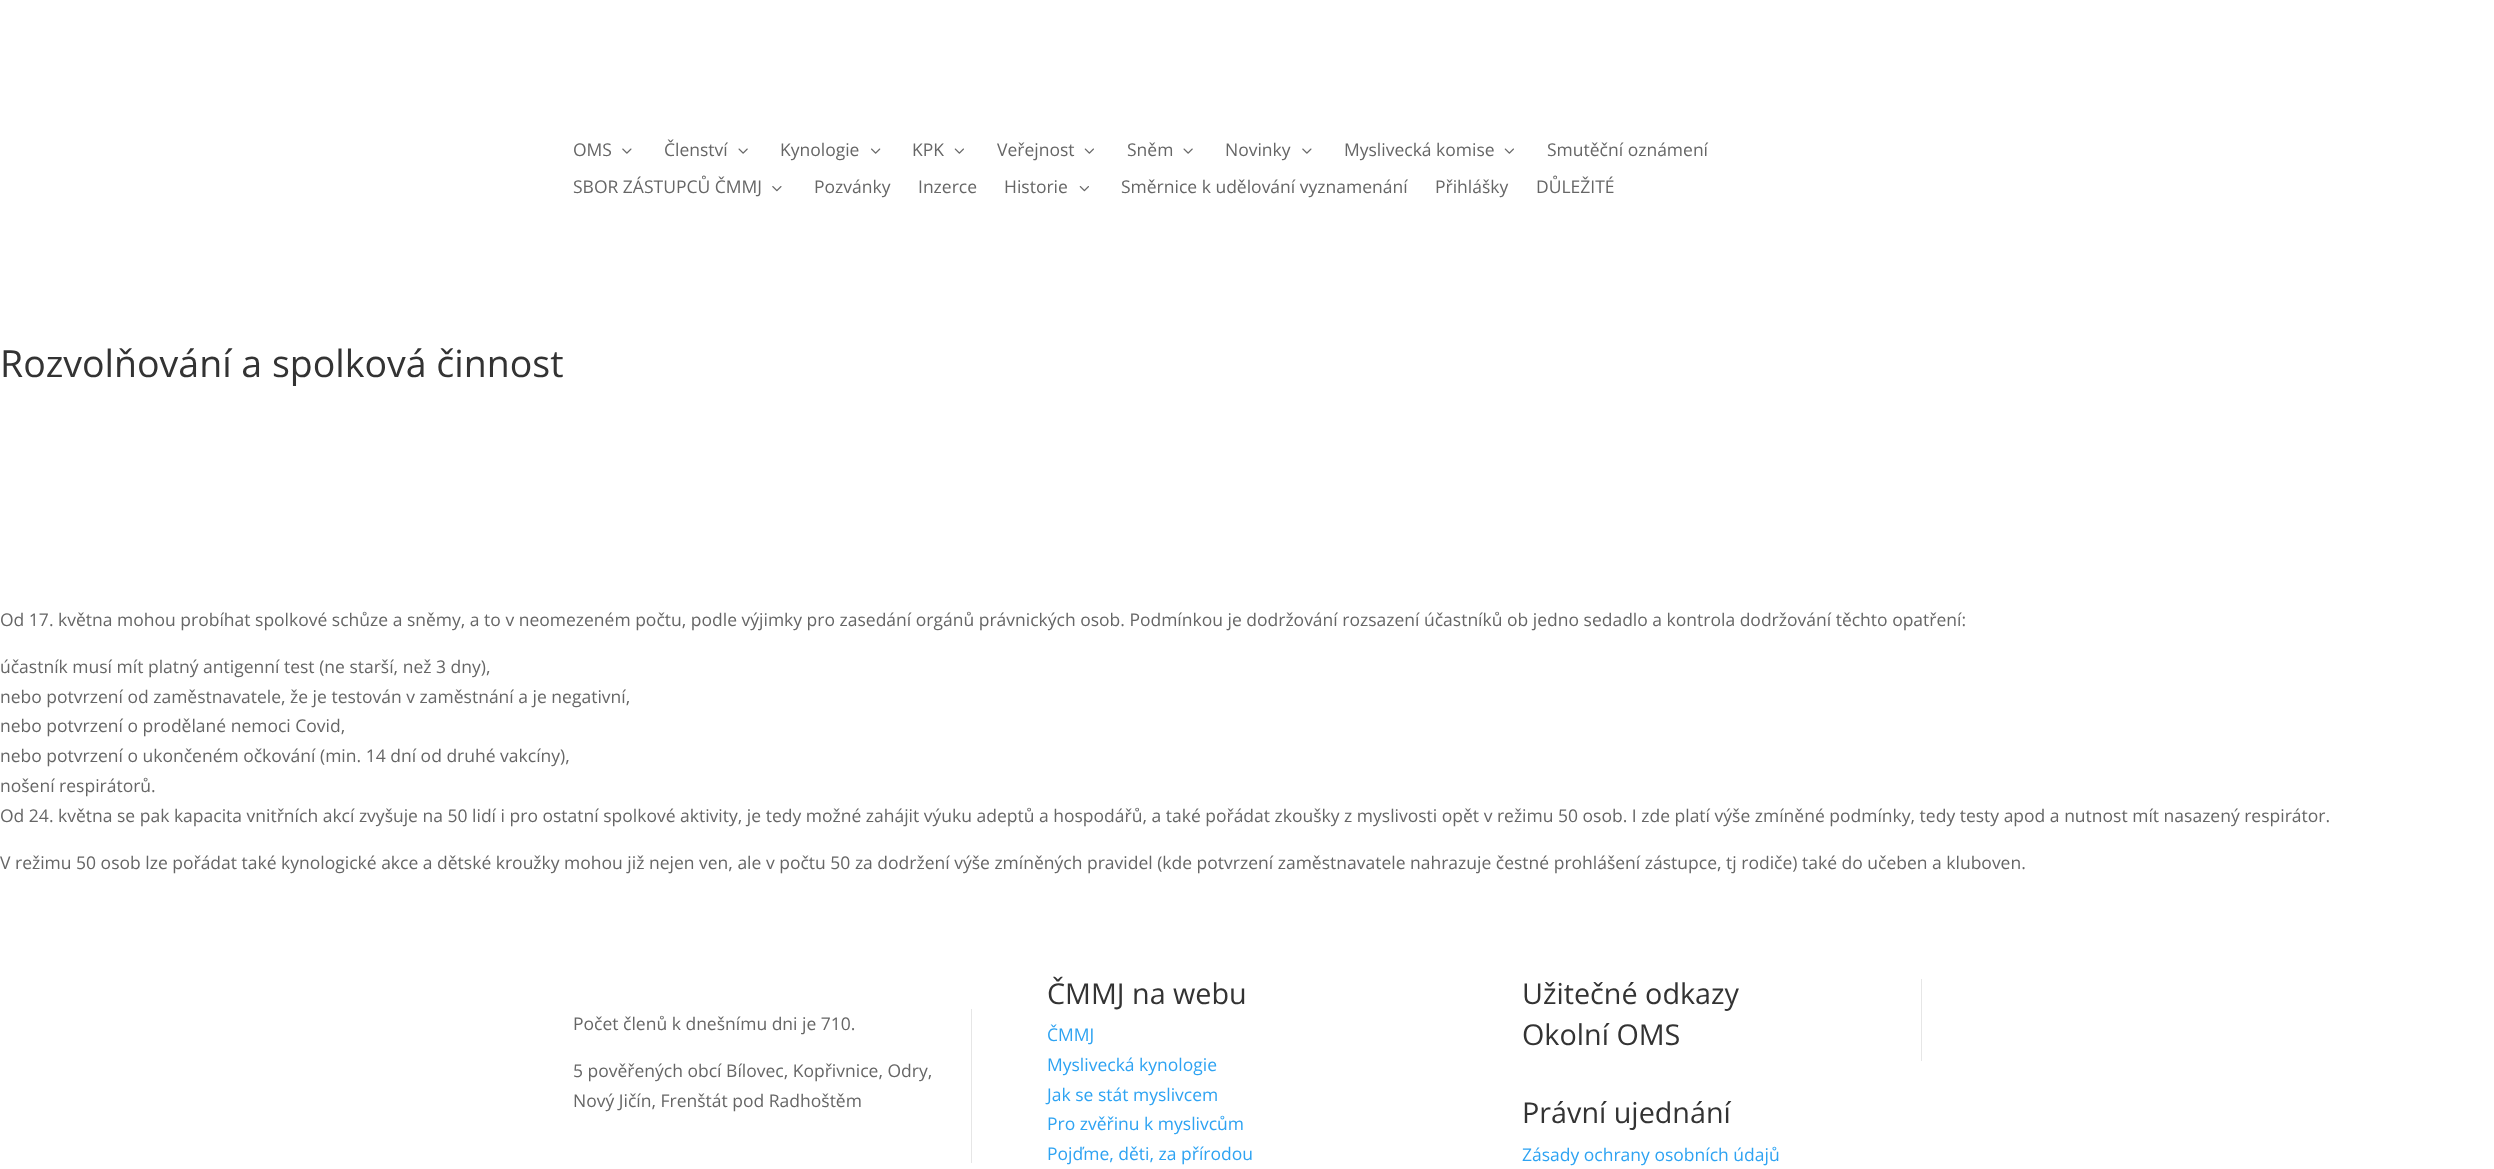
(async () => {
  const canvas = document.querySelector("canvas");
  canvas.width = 2494;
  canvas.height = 1169;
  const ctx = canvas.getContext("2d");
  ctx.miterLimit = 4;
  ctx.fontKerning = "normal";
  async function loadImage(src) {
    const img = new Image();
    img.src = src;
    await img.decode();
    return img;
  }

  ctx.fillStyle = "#ffffff";
  ctx.fillRect(0, 0, 2494, 1169);
  ctx.drawImage(await loadImage("img/1.png"), 622, 148, 10, 6);
  ctx.drawImage(await loadImage("img/2.png"), 738, 148, 10, 6);
  ctx.drawImage(await loadImage("img/3.png"), 871, 148, 10, 6);
  ctx.drawImage(await loadImage("img/4.png"), 954, 148, 10, 6);
  ctx.drawImage(await loadImage("img/4.png"), 1084, 148, 10, 6);
  ctx.drawImage(await loadImage("img/2.png"), 1183, 148, 10, 6);
  ctx.drawImage(await loadImage("img/1.png"), 1302, 148, 10, 6);
  ctx.drawImage(await loadImage("img/4.png"), 1504, 148, 10, 6);
  ctx.drawImage(await loadImage("img/5.png"), 772, 186, 10, 6);
  ctx.drawImage(await loadImage("img/6.png"), 1079, 186, 10, 6);
  ctx.fillStyle = "#e6e6e6";
  ctx.fillRect(971, 1009, 1, 154);
  ctx.fillRect(1921, 979, 1, 82);
  ctx.font = "17.5px Open Sans";
  ctx.fillStyle = "#666666";
  for (const [text, x, y] of [
    ["OMS", 573, 156],
    ["Členství", 664, 156],
    ["Kynologie", 780, 156],
    ["KPK", 912, 156],
    ["Veřejnost", 997, 156],
    ["Sněm", 1127, 156],
    ["Novinky", 1225, 156],
    ["Myslivecká komise", 1344, 156],
    ["Smutěční oznámení", 1547, 156],
    ["SBOR ZÁSTUPCŮ ČMMJ", 573, 193],
    ["Pozvánky", 814, 193],
    ["Inzerce", 918, 193],
    ["Historie", 1004, 193],
    ["Směrnice k udělování vyznamenání", 1121, 193],
    ["Přihlášky", 1435, 193],
    ["DŮLEŽITÉ", 1536, 193],
  ]) {
    ctx.fillText(text, x, y);
  }
  ctx.font = "37.5px Open Sans";
  ctx.fillStyle = "#333333";
  ctx.fillText("Rozvolňování a spolková činnost", 0, 377);
  ctx.font = "17.5px Open Sans";
  ctx.fillStyle = "#666666";
  for (const [text, x, y] of [
    ["Od 17. května mohou probíhat spolkové schůze a sněmy, a to v neomezeném počtu, podle výjimky pro zasedání orgánů právnických osob. Podmínkou je dodržování rozsazení účastníků ob jedno sedadlo a kontrola dodržování těchto opatření:", 0, 626],
    ["účastník musí mít platný antigenní test (ne starší, než 3 dny),", 0, 673],
    ["nebo potvrzení od zaměstnavatele, že je testován v zaměstnání a je negativní,", 0, 703],
    ["nebo potvrzení o prodělané nemoci Covid,", 0, 732],
    ["nebo potvrzení o ukončeném očkování (min. 14 dní od druhé vakcíny),", 0, 762],
    ["nošení respirátorů.", 0, 792],
    ["Od 24. května se pak kapacita vnitřních akcí zvyšuje na 50 lidí i pro ostatní spolkové aktivity, je tedy možné zahájit výuku adeptů a hospodářů, a také pořádat zkoušky z myslivosti opět v režimu 50 osob. I zde platí výše zmíněné podmínky, tedy testy apod a nutnost mít nasazený respirátor.", 0, 822],
    ["V režimu 50 osob lze pořádat také kynologické akce a dětské kroužky mohou již nejen ven, ale v počtu 50 za dodržení výše zmíněných pravidel (kde potvrzení zaměstnavatele nahrazuje čestné prohlášení zástupce, tj rodiče) také do učeben a kluboven.", 0, 869],
    ["Počet členů k dnešnímu dni je 710.", 573, 1030],
    ["5 pověřených obcí Bílovec, Kopřivnice, Odry,", 573, 1077],
    ["Nový Jičín, Frenštát pod Radhoštěm", 573, 1107],
  ]) {
    ctx.fillText(text, x, y);
  }
  ctx.font = "28.75px Open Sans";
  ctx.fillStyle = "#333333";
  ctx.fillText("ČMMJ na webu", 1047, 1004);
  ctx.font = "17.5px Open Sans";
  ctx.fillStyle = "#2ea3f2";
  for (const [text, x, y] of [
    ["ČMMJ", 1047, 1041],
    ["Myslivecká kynologie", 1047, 1071],
    ["Jak se stát myslivcem", 1047, 1101],
    ["Pro zvěřinu k myslivcům", 1047, 1130],
    ["Pojďme, děti, za přírodou", 1047, 1160],
  ]) {
    ctx.fillText(text, x, y);
  }
  ctx.font = "28.75px Open Sans";
  ctx.fillStyle = "#333333";
  for (const [text, x, y] of [
    ["Užitečné odkazy", 1522, 1004],
    ["Okolní OMS", 1522, 1045],
    ["Právní ujednání", 1522, 1123],
  ]) {
    ctx.fillText(text, x, y);
  }
  ctx.font = "17.5px Open Sans";
  ctx.fillStyle = "#2ea3f2";
  ctx.fillText("Zásady ochrany osobních údajů", 1522, 1161);
})();
